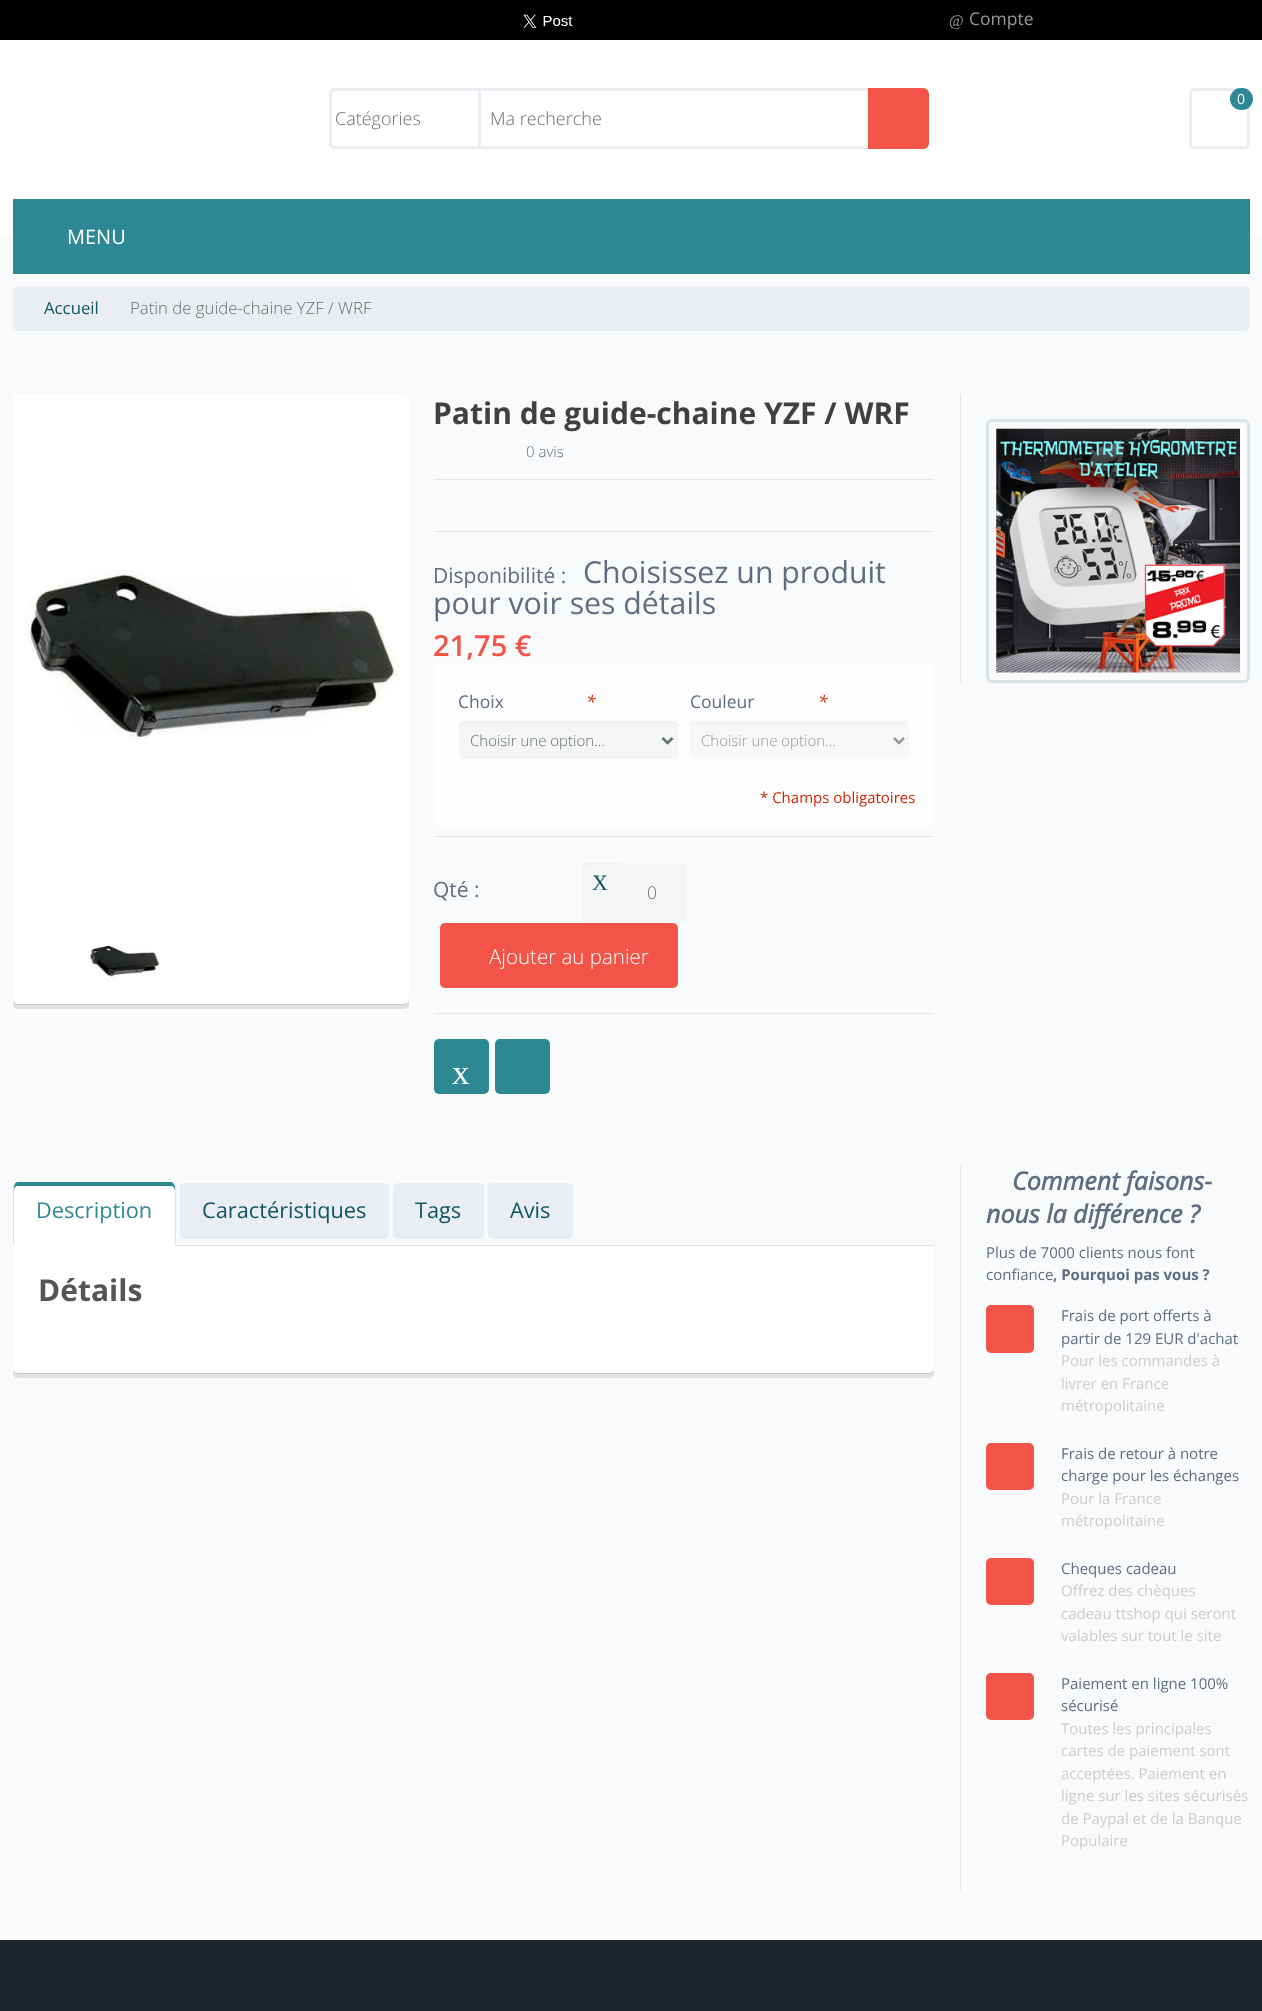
(async () => {
  const canvas = document.querySelector("canvas");
  canvas.width = 1262;
  canvas.height = 2011;
  const ctx = canvas.getContext("2d");
  ctx.miterLimit = 4;
  ctx.fontKerning = "normal";
  async function loadImage(src) {
    const img = new Image();
    img.src = src;
    await img.decode();
    return img;
  }
  let path;

  ctx.fillStyle = "#f9fafc";
  ctx.fillRect(0, 0, 1262, 2011);
  ctx.fillStyle = "#000000";
  ctx.fillRect(0, 0, 1262, 40);
  ctx.drawImage(await loadImage("img/1.png"), 523, 14, 50, 14);
  ctx.fillStyle = "#ffffff";
  ctx.fillRect(0, 40, 1262, 196);
  ctx.beginPath();
  ctx.roundRect(1190.5, 89.5, 58, 58, 3.5);
  ctx.strokeStyle = "#eaedf2";
  ctx.lineWidth = 3;
  ctx.stroke();
  ctx.fillStyle = "#2e8894";
  ctx.beginPath();
  ctx.roundRect(1230, 88, 23, 22, 11);
  ctx.fill();
  ctx.beginPath();
  ctx.roundRect(330.5, 89.5, 597, 58, 3.5);
  ctx.stroke();
  ctx.fillStyle = "#eaedf2";
  ctx.fillRect(478, 90, 3, 56);
  ctx.fillStyle = "#f25448";
  ctx.beginPath();
  ctx.roundRect(868, 88, 61, 61, [0, 6, 6, 0]);
  ctx.fill();
  ctx.fillStyle = "#2e8894";
  ctx.fillRect(13, 199, 1237, 75);
  ctx.fillStyle = "#eaedf2";
  ctx.beginPath();
  ctx.roundRect(13, 286, 1237, 45, 5);
  ctx.fill();
  ctx.fillStyle = "#e0e1e3";
  path = new Path2D("M13 1001V1004C13 1007 15 1009 18 1009H404C407 1009 409 1007 409 1004V402V999C409 1002 407 1004 404 1004H18C16 1004 14 1003 13 1001Z");
  ctx.fill(path);
  ctx.fillStyle = "rgba(0, 0, 0, 0.1)";
  ctx.filter = "blur(0.5px)";
  ctx.beginPath();
  ctx.roundRect(13, 395, 396, 610, 5);
  ctx.fill();
  ctx.filter = "none";
  ctx.fillStyle = "#ffffff";
  ctx.beginPath();
  ctx.roundRect(13, 394, 396, 610, 5);
  ctx.fill();
  ctx.drawImage(await loadImage("img/2.png"), 25, 570, 374, 170);
  ctx.drawImage(await loadImage("img/3.png"), 87, 945, 73, 36);
  ctx.fillStyle = "#e4e4e4";
  ctx.fillRect(434, 479, 500, 1);
  ctx.fillRect(434, 531, 500, 1);
  ctx.fillStyle = "#fdfdfd";
  ctx.beginPath();
  ctx.roundRect(434, 663, 500, 167, 5);
  ctx.fill();
  ctx.fillStyle = "#f3f5f6";
  ctx.beginPath();
  ctx.roundRect(459, 721, 219, 38, 5);
  ctx.fill();
  ctx.fillStyle = "#eef0f1";
  path = new Path2D("M464 724H672C675 724 678 726 678 729V726C678 723 676 721 673 721H464C461 721 459 723 459 726V729C459 726 461 724 464 724Z");
  ctx.fill(path);
  path = new Path2D("M662.5 738L667.5 743L672.5 738");
  ctx.strokeStyle = "#696e6e";
  ctx.lineWidth = 2.5;
  ctx.stroke(path);
  ctx.fillStyle = "#f6f7f8";
  ctx.beginPath();
  ctx.roundRect(690, 721, 219, 38, 5);
  ctx.fill();
  ctx.fillStyle = "#f3f4f5";
  path = new Path2D("M695 724H904C907 724 909 726 909 729V726C909 723 907 721 904 721H695C692 721 690 723 690 726V729C690 726 692 724 695 724Z");
  ctx.fill(path);
  path = new Path2D("M894 738L899 743L904 738");
  ctx.strokeStyle = "#959999";
  ctx.stroke(path);
  ctx.fillStyle = "#e4e4e4";
  ctx.fillRect(434, 836, 500, 1);
  ctx.fillRect(434, 1013, 500, 1);
  ctx.fillStyle = "#f3f5f6";
  ctx.beginPath();
  ctx.roundRect(581, 863, 38, 60, [6, 0, 0, 6]);
  ctx.fill();
  ctx.fillStyle = "#eef0f1";
  path = new Path2D("M588 865H619V863H587C583.5 863 581 865.5 581 869V871C581 868 584 865 588 865Z");
  ctx.fill(path);
  ctx.fillStyle = "#f3f5f6";
  ctx.beginPath();
  ctx.roundRect(619, 863, 67, 60, [0, 6, 6, 0]);
  ctx.fill();
  ctx.fillStyle = "#f25448";
  ctx.beginPath();
  ctx.roundRect(440, 923, 238, 65, 5);
  ctx.fill();
  ctx.fillStyle = "#2e8894";
  ctx.beginPath();
  ctx.roundRect(434, 1039, 55, 55, 5);
  ctx.fill();
  ctx.beginPath();
  ctx.roundRect(495, 1039, 55, 55, 5);
  ctx.fill();
  ctx.fillStyle = "#e4e4e4";
  ctx.fillRect(960, 394, 1, 289);
  ctx.drawImage(await loadImage("img/4.png"), 996, 428, 244, 245);
  ctx.beginPath();
  ctx.roundRect(987.5, 420.5, 261, 261, 4.5);
  ctx.strokeStyle = "#d9e3e8";
  ctx.lineWidth = 3;
  ctx.stroke();
  ctx.fillStyle = "#d9e3e8";
  ctx.fillRect(176, 1245, 758, 1);
  ctx.fillStyle = "#e0e1e3";
  path = new Path2D("M13 1370V1373C13 1376 15 1378 18 1378H929C932 1378 934 1376 934 1373V1251V1368C934 1370 932 1372 929 1372H18C16 1372 14 1371 13 1370Z");
  ctx.fill(path);
  ctx.fillStyle = "rgba(0, 0, 0, 0.1)";
  ctx.filter = "blur(0.5px)";
  ctx.beginPath();
  ctx.roundRect(13, 1248, 921, 126, 5);
  ctx.fill();
  ctx.filter = "none";
  ctx.fillStyle = "#ffffff";
  ctx.beginPath();
  ctx.roundRect(13, 1183, 163, 63, [5, 5, 0, 0]);
  ctx.fill();
  ctx.fillStyle = "#2e8894";
  path = new Path2D("M18 1186H171C173 1186 175 1188 175 1191V1188C175 1185 173 1182 171 1182H18C15 1182 14 1185 14 1188V1246V1191C14 1188 15 1186 18 1186Z");
  ctx.fill(path);
  ctx.fillStyle = "#d9e3e8";
  ctx.fillRect(175, 1185, 1, 61);
  ctx.fillRect(13, 1185, 1, 61);
  ctx.fillStyle = "#eaedf2";
  ctx.beginPath();
  ctx.roundRect(180, 1183, 209, 56, 5);
  ctx.fill();
  ctx.beginPath();
  ctx.roundRect(393, 1183, 91, 56, 5);
  ctx.fill();
  ctx.beginPath();
  ctx.roundRect(488, 1183, 85, 56, 5);
  ctx.fill();
  ctx.fillStyle = "#ffffff";
  ctx.beginPath();
  ctx.roundRect(13, 1246, 921, 127, [0, 0, 5, 5]);
  ctx.fill();
  ctx.fillStyle = "#e4e4e4";
  ctx.fillRect(960, 1165, 1, 725);
  ctx.fillStyle = "#f25448";
  ctx.beginPath();
  ctx.roundRect(986, 1305, 48, 48, 5);
  ctx.fill();
  ctx.beginPath();
  ctx.roundRect(986, 1443, 48, 47, 5);
  ctx.fill();
  ctx.beginPath();
  ctx.roundRect(986, 1558, 48, 47, 5);
  ctx.fill();
  ctx.beginPath();
  ctx.roundRect(986, 1673, 48, 47, 5);
  ctx.fill();
  ctx.fillStyle = "#1c252d";
  ctx.fillRect(0, 1940, 1262, 71);
  ctx.font = "16px Liberation Serif";
  ctx.fillStyle = "#959999";
  ctx.fillText("@", 949, 26);
  ctx.font = "17.5px Open Sans";
  ctx.fillText("Compte", 969, 25);
  ctx.font = "14px Open Sans";
  ctx.fillStyle = "#ffffff";
  ctx.fillText("0", 1237, 104);
  ctx.font = "300 18px Open Sans";
  ctx.fillStyle = "#696e6e";
  ctx.fillText("Catégories", 335, 125);
  ctx.fillText("Ma recherche", 490, 125);
  ctx.font = "20px Open Sans";
  ctx.fillStyle = "#ffffff";
  ctx.fillText("MENU", 67, 244);
  ctx.font = "16.75px Open Sans";
  ctx.fillStyle = "#0f5660";
  ctx.fillText("Accueil", 44, 314);
  ctx.font = "300 16.75px Open Sans";
  ctx.fillStyle = "#696e6e";
  ctx.fillText("Patin de guide-chaine YZF / WRF", 130, 314);
  ctx.font = "bold 30px Open Sans";
  ctx.fillStyle = "#404040";
  ctx.fillText("Patin de guide-chaine YZF / WRF", 433, 424);
  ctx.font = "300 15px Open Sans";
  ctx.fillStyle = "#5e6d82";
  ctx.fillText("0 avis", 526, 457);
  ctx.font = "21px Open Sans";
  ctx.fillText("Disponibilité :", 433, 583);
  ctx.font = "30.25px Open Sans";
  ctx.fillText("Choisissez un produit", 583, 583);
  ctx.fillText("pour voir ses détails", 433, 614);
  ctx.font = "600 29px Open Sans";
  ctx.fillStyle = "#f25448";
  ctx.fillText("21,75 €", 433, 656);
  ctx.font = "17.5px Open Sans";
  ctx.fillStyle = "#5e6d82";
  ctx.fillText("Choix", 458, 708);
  ctx.font = "italic 17.5px Open Sans";
  ctx.fillStyle = "#cb2700";
  ctx.fillText("*", 586, 708);
  ctx.font = "300 15px Open Sans";
  ctx.fillStyle = "#696e6e";
  ctx.fillText("Choisir une option...", 470, 746);
  ctx.font = "17.5px Open Sans";
  ctx.fillStyle = "#5e6d82";
  ctx.fillText("Couleur", 690, 708);
  ctx.font = "italic 17.5px Open Sans";
  ctx.fillStyle = "#cb2700";
  ctx.fillText("*", 818, 708);
  ctx.font = "300 15px Open Sans";
  ctx.fillStyle = "#959999";
  ctx.fillText("Choisir une option...", 701, 746);
  ctx.font = "15px Open Sans";
  ctx.fillStyle = "#cb2700";
  ctx.fillText("* Champs obligatoires", 760, 803);
  ctx.font = "21px Open Sans";
  ctx.fillStyle = "#5e6d82";
  ctx.fillText("Qté :", 433, 897);
  ctx.font = "22px Liberation Serif";
  ctx.fillStyle = "#0f5660";
  ctx.fillText("X", 592, 890);
  ctx.font = "300 17.5px Open Sans";
  ctx.fillStyle = "#696e6e";
  ctx.fillText("0", 647, 899);
  ctx.font = "300 20.5px Open Sans";
  ctx.fillStyle = "#ffffff";
  ctx.fillText("Ajouter au panier", 489, 964);
  ctx.font = "35px Liberation Serif";
  ctx.fillText("x", 452, 1084);
  ctx.font = "21.75px Open Sans";
  ctx.fillStyle = "#2e8894";
  ctx.fillText("Description", 36, 1218);
  ctx.fillStyle = "#0f5660";
  for (const [text, x, y] of [
    ["Caractéristiques", 202, 1218],
    ["Tags", 415, 1218],
    ["Avis", 510, 1218],
  ]) {
    ctx.fillText(text, x, y);
  }
  ctx.font = "bold 30px Open Sans";
  ctx.fillStyle = "#555555";
  ctx.fillText("Détails", 38, 1301);
  ctx.font = "italic bold 25px Open Sans";
  ctx.fillStyle = "#5e6d82";
  ctx.fillText("Comment faisons-", 1012, 1190);
  ctx.fillText("nous la différence ?", 986, 1223);
  ctx.font = "15px Open Sans";
  ctx.fillText("Plus de 7000 clients nous font", 986, 1258);
  ctx.fillText("confiance", 986, 1280);
  ctx.font = "bold 15px Open Sans";
  ctx.fillText(", Pourquoi pas vous ?", 1053, 1280);
  ctx.font = "15px Open Sans";
  ctx.fillText("Frais de port offerts à", 1061, 1321);
  ctx.fillText("partir de 129 EUR d'achat", 1061, 1344);
  ctx.fillStyle = "#cccccc";
  for (const [text, x, y] of [
    ["Pour les commandes à", 1061, 1366],
    ["livrer en France", 1061, 1389],
    ["métropolitaine", 1061, 1411],
  ]) {
    ctx.fillText(text, x, y);
  }
  ctx.fillStyle = "#5e6d82";
  ctx.fillText("Frais de retour à notre", 1061, 1459);
  ctx.fillText("charge pour les échanges", 1061, 1481);
  ctx.fillStyle = "#cccccc";
  ctx.fillText("Pour la France", 1061, 1504);
  ctx.fillText("métropolitaine", 1061, 1526);
  ctx.fillStyle = "#5e6d82";
  ctx.fillText("Cheques cadeau", 1061, 1574);
  ctx.fillStyle = "#cccccc";
  for (const [text, x, y] of [
    ["Offrez des chèques", 1061, 1596],
    ["cadeau ttshop qui seront", 1061, 1619],
    ["valables sur tout le site", 1061, 1641],
  ]) {
    ctx.fillText(text, x, y);
  }
  ctx.fillStyle = "#5e6d82";
  ctx.fillText("Paiement en ligne 100%", 1061, 1689);
  ctx.fillText("sécurisé", 1061, 1711);
  ctx.fillStyle = "#cccccc";
  for (const [text, x, y] of [
    ["Toutes les principales", 1061, 1734],
    ["cartes de paiement sont", 1061, 1756],
    ["acceptées. Paiement en", 1061, 1779],
    ["ligne sur les sites sécurisés", 1061, 1801],
    ["de Paypal et de la Banque", 1061, 1824],
    ["Populaire", 1061, 1846],
  ]) {
    ctx.fillText(text, x, y);
  }
})();
